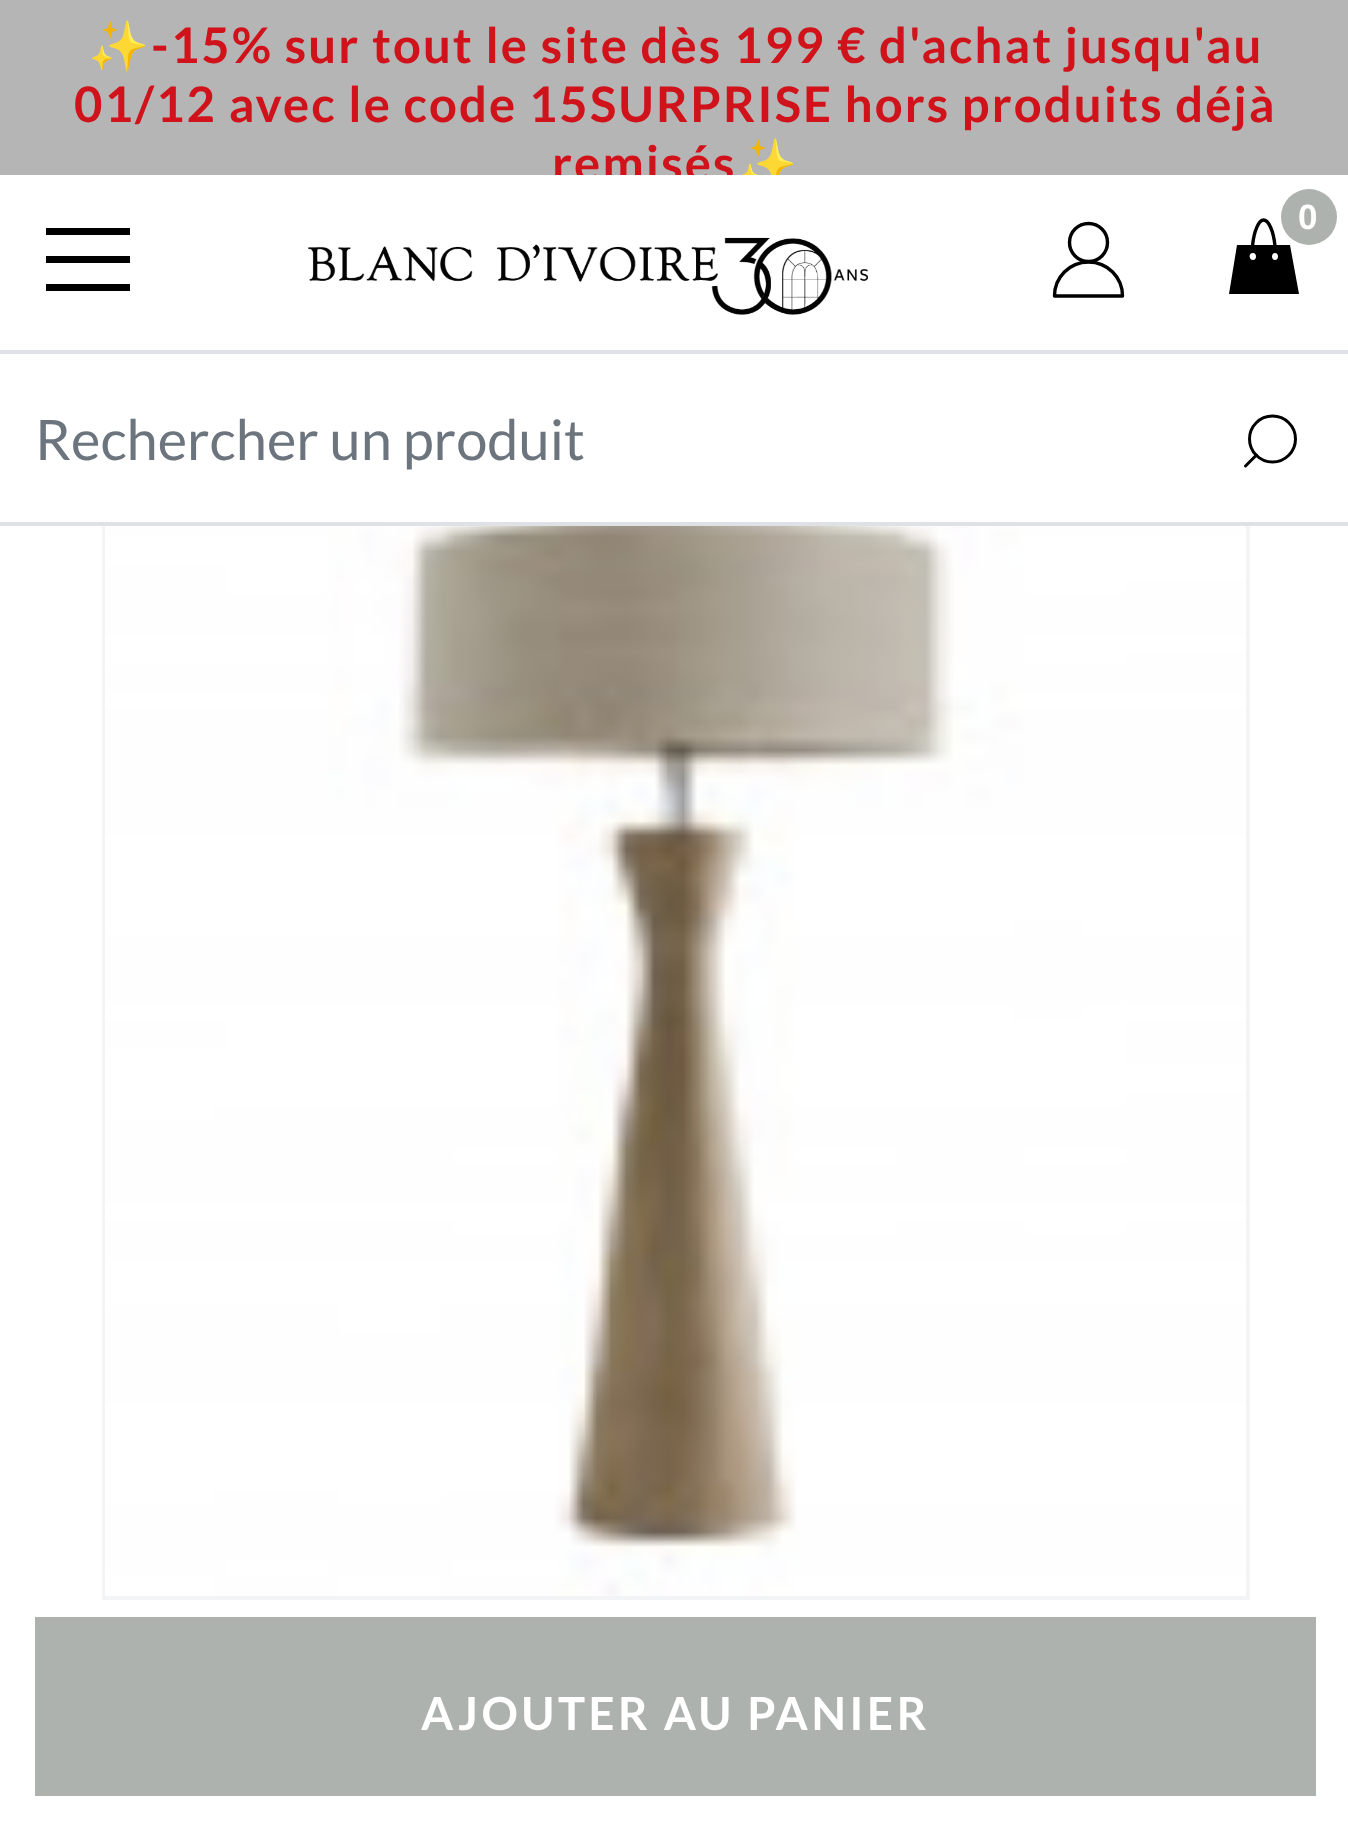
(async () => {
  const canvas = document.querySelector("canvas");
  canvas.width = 1348;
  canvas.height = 1830;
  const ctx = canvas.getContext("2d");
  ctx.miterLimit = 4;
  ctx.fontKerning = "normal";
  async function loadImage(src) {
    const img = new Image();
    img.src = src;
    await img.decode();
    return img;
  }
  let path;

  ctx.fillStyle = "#ffffff";
  ctx.fillRect(0, 0, 1348, 1830);
  ctx.fillStyle = "#b5b5b5";
  ctx.fillRect(0, 0, 1348, 175);
  path = new Path2D("M1252.5 246C1254 230.5 1259 220 1263.5 220C1268.5 220 1273.5 230.5 1275 246");
  ctx.strokeStyle = "#000000";
  ctx.lineWidth = 3.4;
  ctx.stroke(path);
  ctx.fillStyle = "#000000";
  path = new Path2D("M1290 245H1237L1229 294H1299ZM1253 260C1249 260 1248 253 1253 253C1257 253 1257 260 1253 260ZM1275 260C1271 260 1271 253 1275 253C1279 253 1279 260 1275 260Z");
  ctx.fill(path);
  ctx.fillStyle = "#aeb2af";
  ctx.beginPath();
  ctx.arc(1309, 217, 28, 0, Math.PI * 2);
  ctx.fill();
  for (const [x, y, w, h, color] of [
    [46, 228, 84, 7, "#000000"],
    [46, 256, 84, 7, "#000000"],
    [46, 284, 84, 7, "#000000"],
  ]) {
    ctx.fillStyle = color;
    ctx.fillRect(x, y, w, h);
  }
  ctx.drawImage(await loadImage("img/1.png"), 308, 237, 560, 78);
  ctx.beginPath();
  ctx.arc(1088.5, 242.5, 19, 0, Math.PI * 2);
  ctx.stroke();
  path = new Path2D("M1122.5 296C1122.5 277.5 1107.5 262 1088.5 262C1069.5 262 1054.5 277.5 1054.5 296Z");
  ctx.lineCap = "round";
  ctx.lineJoin = "round";
  ctx.stroke(path);
  ctx.strokeStyle = "#f3f4f6";
  ctx.lineWidth = 4;
  ctx.lineJoin = "miter";
  ctx.strokeRect(104, 457, 1144, 1141);
  for (const [x, y, w, h, color] of [
    [102, 455, 1148, 67, "#ffffff"],
    [0, 350, 1348, 4, "#dee2e6"],
    [0, 522, 1348, 4, "#dee2e6"],
  ]) {
    ctx.fillStyle = color;
    ctx.fillRect(x, y, w, h);
  }
  ctx.beginPath();
  ctx.arc(1272.5, 439, 23, 0, Math.PI * 2);
  ctx.strokeStyle = "#000000";
  ctx.lineWidth = 3;
  ctx.stroke();
  path = new Path2D("M1256.5 455L1245.5 466");
  ctx.lineJoin = "round";
  ctx.stroke(path);
  ctx.drawImage(await loadImage("img/2.png"), 105, 526, 1141, 1070);
  ctx.fillStyle = "#aeb2af";
  ctx.fillRect(35, 1617, 1281, 179);
  ctx.letterSpacing = "2.1px";
  ctx.font = "bold 49px Noto Color Emoji";
  ctx.fillStyle = "#d0121a";
  ctx.fillText("✨", 88, 63);
  ctx.font = "bold 49px Lato";
  ctx.fillText("-15% sur tout le site dès 199 € d'achat jusqu'au", 151, 63);
  ctx.fillText("01/12 avec le code 15SURPRISE hors produits déjà", 74, 122);
  ctx.save();
  ctx.beginPath();
  ctx.rect(0, 0, 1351, 175);
  ctx.clip();
  ctx.fillText("remisés", 552, 181);
  ctx.font = "bold 49px Noto Color Emoji";
  ctx.fillText("✨", 736, 181);
  ctx.restore();
  ctx.font = "bold 35px Liberation Sans";
  ctx.fillStyle = "#ffffff";
  ctx.fillText("0", 1298, 229);
  ctx.letterSpacing = "0px";
  ctx.font = "56px Lato";
  ctx.fillStyle = "#6c757d";
  ctx.fillText("Rechercher un produit", 35, 460);
  ctx.letterSpacing = "3.5px";
  ctx.font = "bold 45.5px Lato";
  ctx.fillStyle = "#ffffff";
  ctx.fillText("AJOUTER AU PANIER", 421, 1730);
})();
